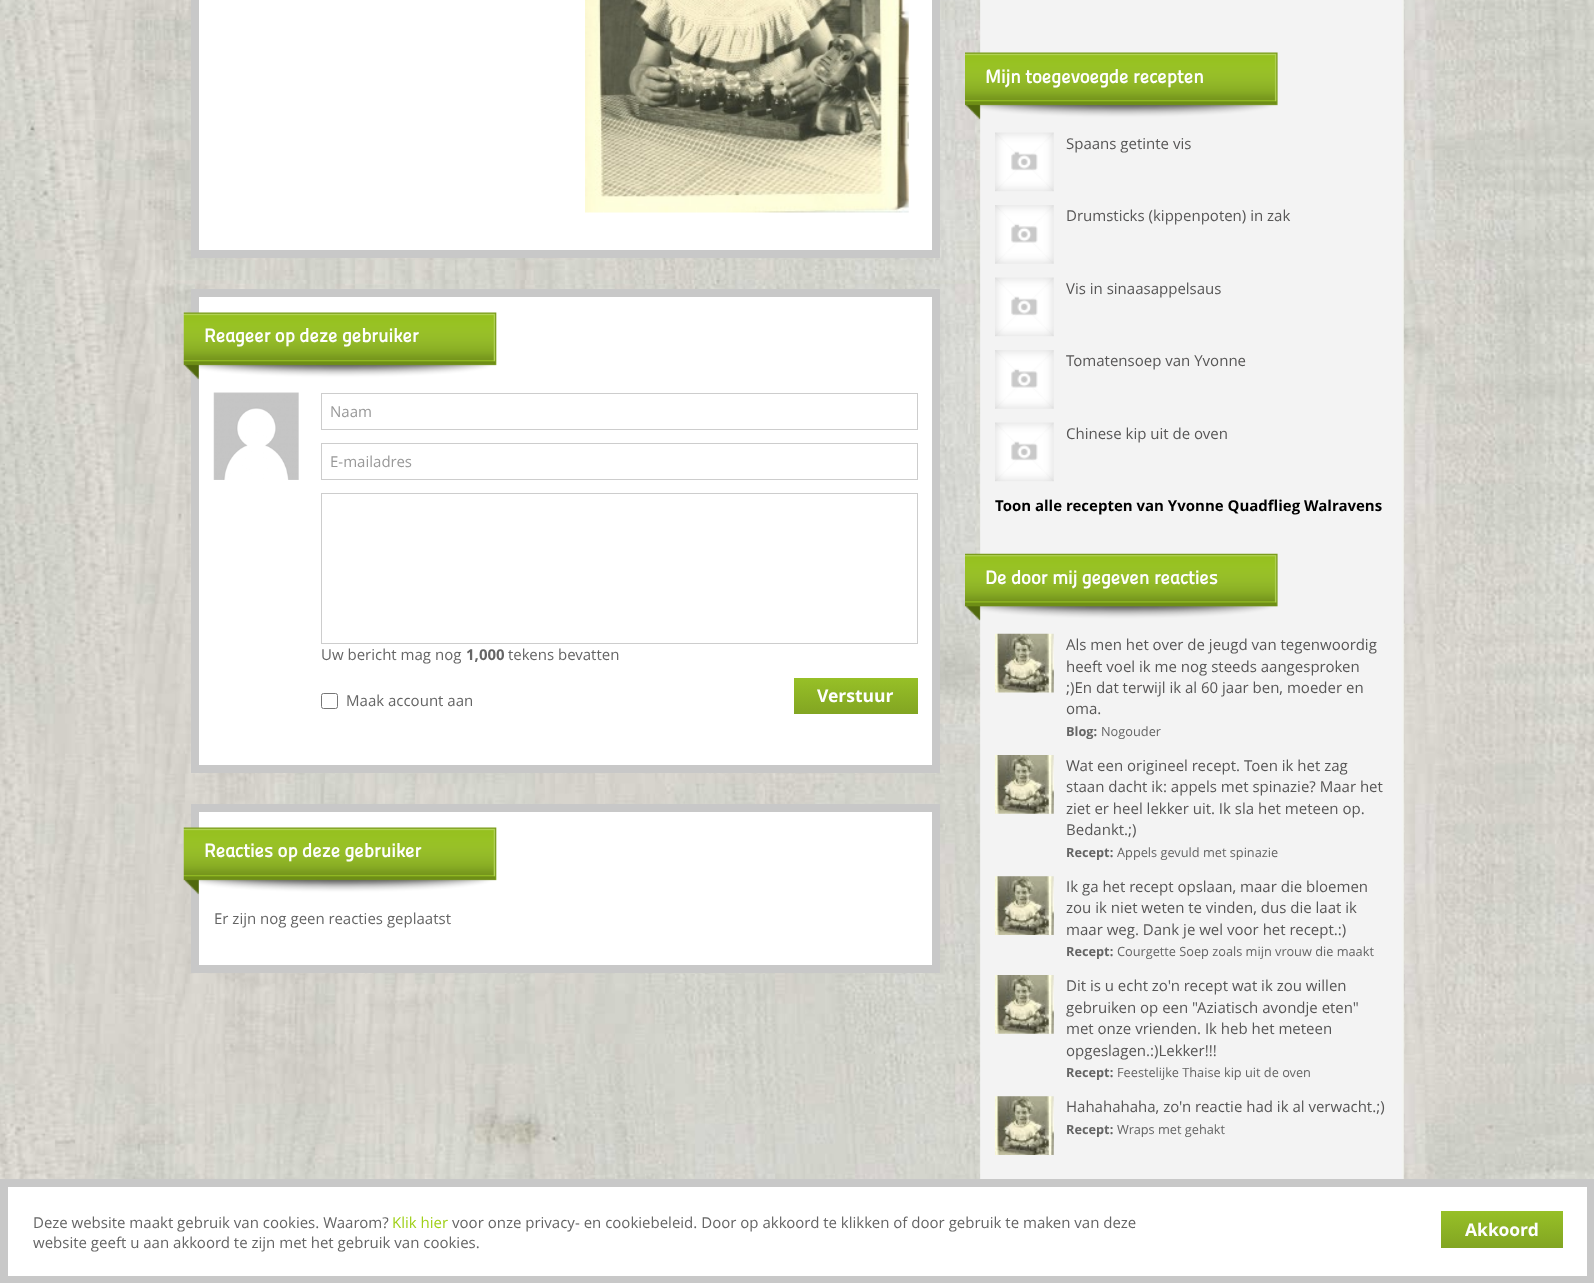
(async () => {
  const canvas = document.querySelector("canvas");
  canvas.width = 1594;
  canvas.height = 1283;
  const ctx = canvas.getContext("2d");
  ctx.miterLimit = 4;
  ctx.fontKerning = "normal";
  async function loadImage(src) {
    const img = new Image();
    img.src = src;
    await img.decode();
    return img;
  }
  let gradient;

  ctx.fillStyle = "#ffffff";
  ctx.fillRect(0, 0, 1594, 1283);
  ctx.drawImage(await loadImage("img/1.png"), 0, 0, 1594, 1179);
  ctx.drawImage(await loadImage("img/2.png"), 979, 0, 425, 1179);
  ctx.beginPath();
  ctx.rect(195, -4, 741, 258);
  ctx.fill();
  ctx.strokeStyle = "#c8c8c8";
  ctx.lineWidth = 8;
  ctx.stroke();
  ctx.drawImage(await loadImage("img/3.png"), 585, 0, 324, 213);
  ctx.beginPath();
  ctx.rect(195, 293, 741, 476);
  ctx.fill();
  ctx.stroke();
  ctx.drawImage(await loadImage("img/4.png"), 183, 312, 314, 68);
  ctx.drawImage(await loadImage("img/5.png"), 213, 392, 86, 88);
  ctx.strokeStyle = "#cdcdcd";
  ctx.lineWidth = 1;
  ctx.strokeRect(321.5, 393.5, 596, 36);
  ctx.strokeRect(321.5, 443.5, 596, 36);
  ctx.strokeRect(321.5, 493.5, 596, 150);
  ctx.beginPath();
  ctx.roundRect(321.5, 693.5, 16, 15, 2);
  ctx.strokeStyle = "#767676";
  ctx.stroke();
  gradient = ctx.createLinearGradient(856, 678, 856, 714);
  gradient.addColorStop(0, "#97c027");
  gradient.addColorStop(1, "#82a522");
  ctx.fillStyle = gradient;
  ctx.fillRect(794, 678, 124, 36);
  ctx.fillStyle = "#ffffff";
  ctx.beginPath();
  ctx.rect(195, 808, 741, 161);
  ctx.fill();
  ctx.strokeStyle = "#c8c8c8";
  ctx.lineWidth = 8;
  ctx.stroke();
  ctx.drawImage(await loadImage("img/6.png"), 183, 827, 314, 68);
  ctx.drawImage(await loadImage("img/7.png"), 965, 52, 313, 68);
  ctx.drawImage(await loadImage("img/8.png"), 995, 132, 59, 60);
  ctx.drawImage(await loadImage("img/9.png"), 995, 205, 59, 59);
  ctx.drawImage(await loadImage("img/8.png"), 995, 277, 59, 60);
  ctx.drawImage(await loadImage("img/9.png"), 995, 350, 59, 59);
  ctx.drawImage(await loadImage("img/8.png"), 995, 422, 59, 60);
  ctx.drawImage(await loadImage("img/10.png"), 965, 553, 313, 68);
  ctx.drawImage(await loadImage("img/11.png"), 995, 633, 59, 60);
  ctx.drawImage(await loadImage("img/12.png"), 995, 755, 59, 59);
  ctx.drawImage(await loadImage("img/13.png"), 995, 876, 59, 59);
  ctx.drawImage(await loadImage("img/12.png"), 995, 975, 59, 59);
  ctx.drawImage(await loadImage("img/13.png"), 995, 1096, 59, 59);
  ctx.strokeRect(4, 1183, 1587, 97);
  gradient = ctx.createLinearGradient(1502, 1211, 1502, 1248);
  gradient.addColorStop(0, "#97c027");
  gradient.addColorStop(1, "#82a522");
  ctx.fillStyle = gradient;
  ctx.fillRect(1441, 1211, 122, 37);
  ctx.font = "bold 18.75px 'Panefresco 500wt'";
  ctx.fillStyle = "#fefefe";
  ctx.fillText("Reageer op deze gebruiker", 204, 342);
  ctx.font = "15px Open Sans";
  ctx.fillStyle = "#999999";
  ctx.fillText("Naam", 330, 417);
  ctx.fillText("E-mailadres", 330, 467);
  ctx.fillStyle = "#656565";
  ctx.fillText("Uw bericht mag nog", 321, 660);
  ctx.font = "bold 15px Open Sans";
  ctx.fillText("1,000", 466, 660);
  ctx.font = "15px Open Sans";
  ctx.fillText("tekens bevatten", 508, 660);
  ctx.fillText("Maak account aan", 346, 706);
  ctx.font = "bold 17.5px Open Sans";
  ctx.fillStyle = "#fefefe";
  ctx.fillText("Verstuur", 817, 702);
  ctx.font = "bold 18.75px 'Panefresco 500wt'";
  ctx.fillText("Reacties op deze gebruiker", 204, 857);
  ctx.font = "15px Open Sans";
  ctx.fillStyle = "#656565";
  ctx.fillText("Er zijn nog geen reacties geplaatst", 214, 924);
  ctx.font = "bold 18.75px 'Panefresco 500wt'";
  ctx.fillStyle = "#fefefe";
  ctx.fillText("Mijn toegevoegde recepten", 985, 83);
  ctx.font = "15px Open Sans";
  ctx.fillStyle = "#575656";
  for (const [text, x, y] of [
    ["Spaans getinte vis", 1066, 149],
    ["Drumsticks (kippenpoten) in zak", 1066, 221],
    ["Vis in sinaasappelsaus", 1066, 294],
    ["Tomatensoep van Yvonne", 1066, 366],
    ["Chinese kip uit de oven", 1066, 439],
  ]) {
    ctx.fillText(text, x, y);
  }
  ctx.font = "bold 15px Open Sans";
  ctx.fillStyle = "#000000";
  ctx.fillText("Toon alle recepten van Yvonne Quadflieg Walravens", 995, 511);
  ctx.font = "bold 18.75px 'Panefresco 500wt'";
  ctx.fillStyle = "#fefefe";
  ctx.fillText("De door mij gegeven reacties", 985, 584);
  ctx.font = "15px Open Sans";
  ctx.fillStyle = "#575656";
  for (const [text, x, y] of [
    ["Als men het over de jeugd van tegenwoordig", 1066, 650],
    ["heeft voel ik me nog steeds aangesproken", 1066, 672],
    [";)En dat terwijl ik al 60 jaar ben, moeder en", 1066, 693],
    ["oma.", 1066, 714],
  ]) {
    ctx.fillText(text, x, y);
  }
  ctx.font = "bold 12.75px Open Sans";
  ctx.fillStyle = "#656565";
  ctx.fillText("Blog:", 1066, 736);
  ctx.font = "12.75px Open Sans";
  ctx.fillText("Nogouder", 1101, 736);
  ctx.font = "15px Open Sans";
  ctx.fillStyle = "#575656";
  for (const [text, x, y] of [
    ["Wat een origineel recept. Toen ik het zag", 1066, 771],
    ["staan dacht ik: appels met spinazie? Maar het", 1066, 792],
    ["ziet er heel lekker uit. Ik sla het meteen op.", 1066, 814],
    ["Bedankt.;)", 1066, 835],
  ]) {
    ctx.fillText(text, x, y);
  }
  ctx.font = "bold 12.75px Open Sans";
  ctx.fillStyle = "#656565";
  ctx.fillText("Recept:", 1066, 857);
  ctx.font = "12.75px Open Sans";
  ctx.fillText("Appels gevuld met spinazie", 1117, 857);
  ctx.font = "15px Open Sans";
  ctx.fillStyle = "#575656";
  for (const [text, x, y] of [
    ["Ik ga het recept opslaan, maar die bloemen", 1066, 892],
    ["zou ik niet weten te vinden, dus die laat ik", 1066, 913],
    ["maar weg. Dank je wel voor het recept.:)", 1066, 935],
  ]) {
    ctx.fillText(text, x, y);
  }
  ctx.font = "bold 12.75px Open Sans";
  ctx.fillStyle = "#656565";
  ctx.fillText("Recept:", 1066, 956);
  ctx.font = "12.75px Open Sans";
  ctx.fillText("Courgette Soep zoals mijn vrouw die maakt", 1117, 956);
  ctx.font = "15px Open Sans";
  ctx.fillStyle = "#575656";
  for (const [text, x, y] of [
    ["Dit is u echt zo'n recept wat ik zou willen", 1066, 991],
    ["gebruiken op een \"Aziatisch avondje eten\"", 1066, 1013],
    ["met onze vrienden. Ik heb het meteen", 1066, 1034],
    ["opgeslagen.:)Lekker!!!", 1066, 1056],
  ]) {
    ctx.fillText(text, x, y);
  }
  ctx.font = "bold 12.75px Open Sans";
  ctx.fillStyle = "#656565";
  ctx.fillText("Recept:", 1066, 1077);
  ctx.font = "12.75px Open Sans";
  ctx.fillText("Feestelijke Thaise kip uit de oven", 1117, 1077);
  ctx.font = "15px Open Sans";
  ctx.fillStyle = "#575656";
  ctx.fillText("Hahahahaha, zo'n reactie had ik al verwacht.;)", 1066, 1112);
  ctx.font = "bold 12.75px Open Sans";
  ctx.fillStyle = "#656565";
  ctx.fillText("Recept:", 1066, 1134);
  ctx.font = "12.75px Open Sans";
  ctx.fillText("Wraps met gehakt", 1117, 1134);
  ctx.font = "15px Open Sans";
  ctx.fillText("Deze website maakt gebruik van cookies. Waarom?", 33, 1228);
  ctx.fillStyle = "#9fd018";
  ctx.fillText("Klik hier", 392, 1228);
  ctx.fillStyle = "#656565";
  ctx.fillText("voor onze privacy- en cookiebeleid. Door op akkoord te klikken of door gebruik te maken van deze", 452, 1228);
  ctx.fillText("website geeft u aan akkoord te zijn met het gebruik van cookies.", 33, 1248);
  ctx.font = "bold 17.5px Open Sans";
  ctx.fillStyle = "#fefefe";
  ctx.fillText("Akkoord", 1465, 1236);
})();
